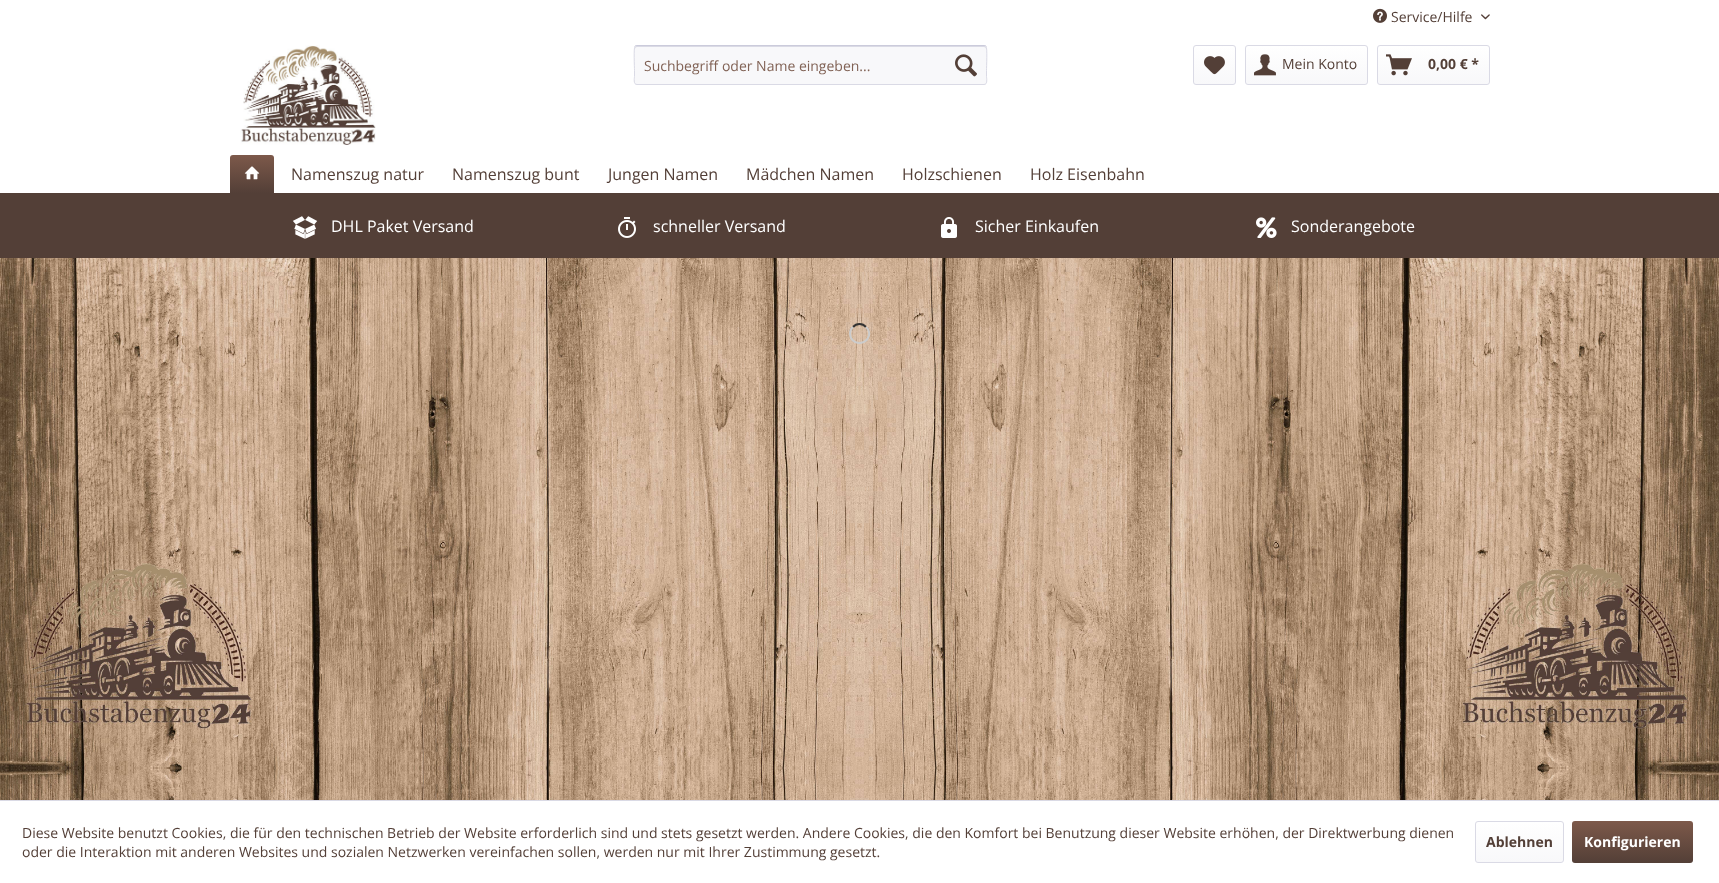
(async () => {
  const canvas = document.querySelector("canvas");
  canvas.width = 1719;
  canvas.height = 883;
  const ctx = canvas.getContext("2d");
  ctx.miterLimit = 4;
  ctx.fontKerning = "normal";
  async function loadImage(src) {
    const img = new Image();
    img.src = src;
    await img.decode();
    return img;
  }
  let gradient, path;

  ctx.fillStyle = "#ffffff";
  ctx.fillRect(0, 0, 1719, 883);
  ctx.drawImage(await loadImage("img/1.png"), 1373, 8, 14, 15);
  ctx.drawImage(await loadImage("img/2.png"), 1481, 14, 9, 6);
  ctx.drawImage(await loadImage("img/3.png"), 240, 45, 136, 100);
  ctx.fillStyle = "#f8f8fa";
  ctx.beginPath();
  ctx.roundRect(634, 45, 353, 40, 3);
  ctx.fill();
  ctx.fillStyle = "#dadae5";
  path = new Path2D("M637 47H984C985 47 986 48 986 49C986 48 986 46 984 46H637C635 46 635 48 635 49C635 48 636 47 637 47Z");
  ctx.fill(path);
  path = new Path2D("M635 46L637 45.5H984L986 46");
  ctx.strokeStyle = "#cbcbdb";
  ctx.stroke(path);
  path = new Path2D("M986 46C987.5 48 986.5 67 986.5 70.5V76.5C986.5 78 988 84.5 984 84.5H637C633 84.5 634.5 78 634.5 76.5V70.5C634.5 67 633.5 48 635 46");
  ctx.strokeStyle = "#dadae5";
  ctx.stroke(path);
  ctx.drawImage(await loadImage("img/4.png"), 955, 54, 22, 23);
  gradient = ctx.createLinearGradient(1215, 46, 1215, 84);
  gradient.addColorStop(0, "#ffffff");
  gradient.addColorStop(1, "#f8f8fa");
  ctx.fillStyle = gradient;
  ctx.beginPath();
  ctx.roundRect(1194, 46, 41, 38, 2);
  ctx.fill();
  ctx.beginPath();
  ctx.roundRect(1193.5, 45.5, 42, 39, 2.5);
  ctx.stroke();
  ctx.drawImage(await loadImage("img/5.png"), 1204, 56, 21, 19);
  gradient = ctx.createLinearGradient(1307, 46, 1307, 84);
  gradient.addColorStop(0, "#ffffff");
  gradient.addColorStop(1, "#f8f8fa");
  ctx.fillStyle = gradient;
  ctx.beginPath();
  ctx.roundRect(1246, 46, 121, 38, 2);
  ctx.fill();
  ctx.beginPath();
  ctx.roundRect(1245.5, 45.5, 122, 39, 2.5);
  ctx.stroke();
  ctx.drawImage(await loadImage("img/6.png"), 1254, 54, 22, 22);
  gradient = ctx.createLinearGradient(1434, 46, 1434, 84);
  gradient.addColorStop(0, "#ffffff");
  gradient.addColorStop(1, "#f8f8fa");
  ctx.fillStyle = gradient;
  ctx.beginPath();
  ctx.roundRect(1378, 46, 111, 38, 2);
  ctx.fill();
  ctx.beginPath();
  ctx.roundRect(1377.5, 45.5, 112, 39, 2.5);
  ctx.stroke();
  ctx.drawImage(await loadImage("img/7.png"), 1386, 54, 26, 22);
  gradient = ctx.createLinearGradient(252, 155, 252, 193);
  gradient.addColorStop(0, "#7d594a");
  gradient.addColorStop(1, "#533f37");
  ctx.fillStyle = gradient;
  ctx.beginPath();
  ctx.roundRect(230, 155, 44, 38, [3, 3, 0, 0]);
  ctx.fill();
  ctx.drawImage(await loadImage("img/8.png"), 244, 166, 16, 14);
  ctx.fillStyle = "#533f37";
  ctx.fillRect(0, 193, 1719, 65);
  ctx.drawImage(await loadImage("img/9.png"), 292, 216, 26, 23);
  ctx.drawImage(await loadImage("img/10.png"), 618, 217, 18, 21);
  ctx.drawImage(await loadImage("img/11.png"), 941, 217, 16, 21);
  ctx.drawImage(await loadImage("img/12.png"), 1256, 217, 21, 21);
  ctx.drawImage(await loadImage("img/13.png"), 0, 258, 1719, 542);
  path = new Path2D("M853 327C856.5 323 862.5 323 866 327");
  ctx.strokeStyle = "#333333";
  ctx.lineWidth = 2;
  ctx.stroke(path);
  path = new Path2D("M866 327C868.5 329 869.5 332.5 869 335.5C866.5 346.5 850 345 850 333.5C850 331 851 328.5 853 327");
  ctx.strokeStyle = "#cccccc";
  ctx.stroke(path);
  ctx.fillStyle = "#dadae5";
  ctx.fillRect(0, 800, 1719, 1);
  gradient = ctx.createLinearGradient(1520, 822, 1520, 862);
  gradient.addColorStop(0, "#ffffff");
  gradient.addColorStop(1, "#f8f8fa");
  ctx.fillStyle = gradient;
  ctx.beginPath();
  ctx.roundRect(1476, 822, 87, 40, 2);
  ctx.fill();
  ctx.beginPath();
  ctx.roundRect(1475.5, 821.5, 88, 41, 2.5);
  ctx.strokeStyle = "#dadae5";
  ctx.lineWidth = 1;
  ctx.stroke();
  gradient = ctx.createLinearGradient(1633, 821, 1633, 863);
  gradient.addColorStop(0, "#7d594a");
  gradient.addColorStop(1, "#533f37");
  ctx.fillStyle = gradient;
  ctx.beginPath();
  ctx.roundRect(1572, 821, 121, 42, 3);
  ctx.fill();
  ctx.font = "14px Open Sans";
  ctx.fillStyle = "#533f37";
  ctx.fillText("Service/Hilfe", 1391, 22);
  ctx.fillStyle = "#816255";
  ctx.fillText("Suchbegriff oder Name eingeben...", 644, 71);
  ctx.fillStyle = "#533f37";
  ctx.fillText("Mein Konto", 1282, 69);
  ctx.font = "bold 14px Open Sans";
  ctx.fillText("0,00 € *", 1428, 69);
  ctx.font = "16px Open Sans";
  for (const [text, x, y] of [
    ["Namenszug natur", 291, 180],
    ["Namenszug bunt", 452, 180],
    ["Jungen Namen", 608, 180],
    ["Mädchen Namen", 746, 180],
    ["Holzschienen", 902, 180],
    ["Holz Eisenbahn", 1030, 180],
  ]) {
    ctx.fillText(text, x, y);
  }
  ctx.fillStyle = "#ffffff";
  for (const [text, x, y] of [
    ["DHL Paket Versand", 331, 232],
    ["schneller Versand", 653, 232],
    ["Sicher Einkaufen", 975, 232],
    ["Sonderangebote", 1291, 232],
  ]) {
    ctx.fillText(text, x, y);
  }
  ctx.font = "14px Open Sans";
  ctx.fillStyle = "#533f37";
  ctx.fillText("Diese Website benutzt Cookies, die für den technischen Betrieb der Website erforderlich sind und stets gesetzt werden. Andere Cookies, die den Komfort bei Benutzung dieser Website erhöhen, der Direktwerbung dienen", 22, 838);
  ctx.fillText("oder die Interaktion mit anderen Websites und sozialen Netzwerken vereinfachen sollen, werden nur mit Ihrer Zustimmung gesetzt.", 22, 857);
  ctx.font = "bold 14px Open Sans";
  ctx.fillText("Ablehnen", 1486, 847);
  ctx.fillStyle = "#ffffff";
  ctx.fillText("Konfigurieren", 1584, 847);
})();
